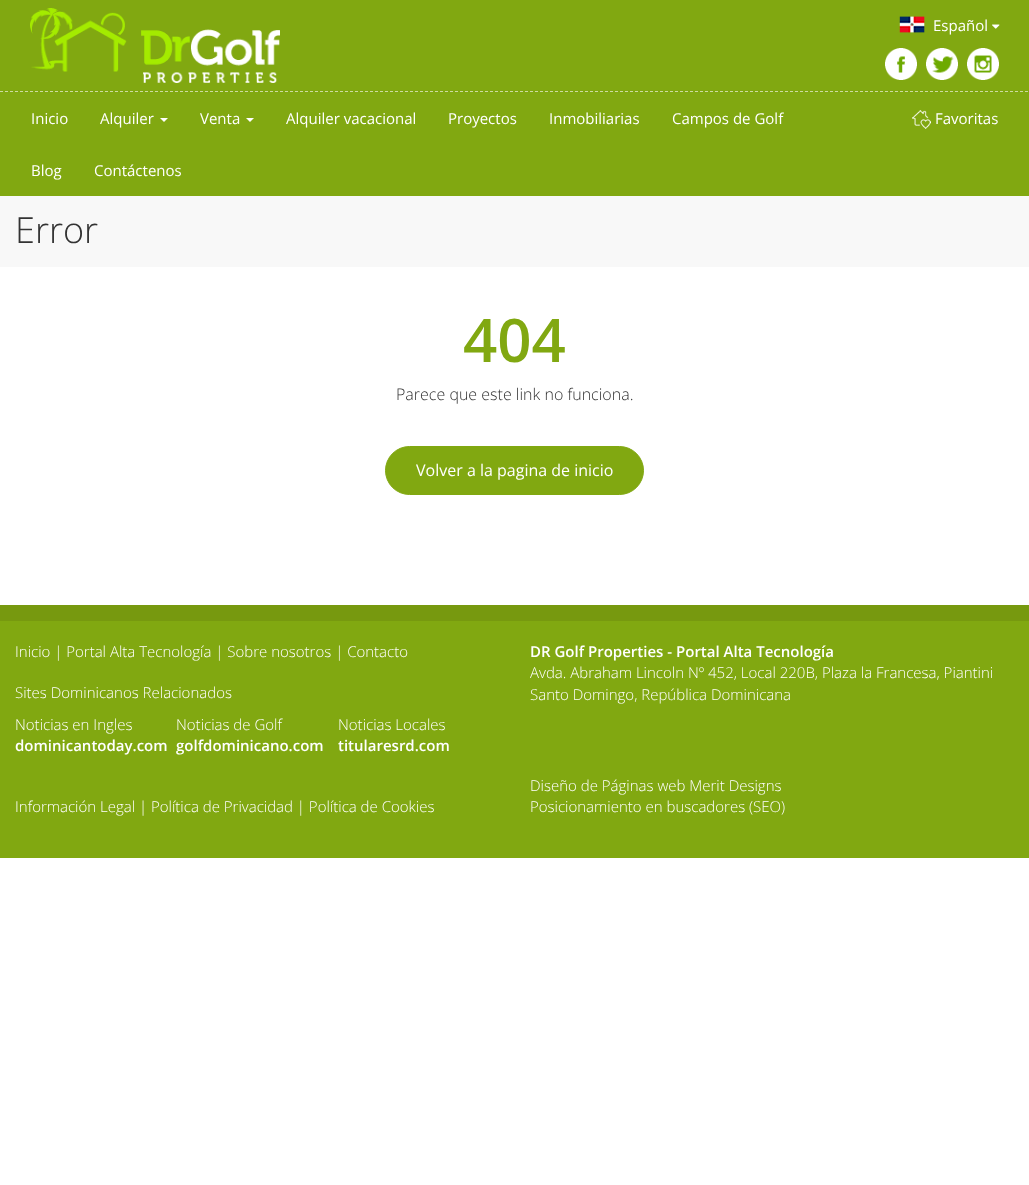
(async () => {
  const canvas = document.querySelector("canvas");
  canvas.width = 1029;
  canvas.height = 1185;
  const ctx = canvas.getContext("2d");
  ctx.miterLimit = 4;
  ctx.fontKerning = "normal";
  async function loadImage(src) {
    const img = new Image();
    img.src = src;
    await img.decode();
    return img;
  }
  let path;

  ctx.fillStyle = "#ffffff";
  ctx.fillRect(0, 0, 1029, 1185);
  ctx.fillStyle = "#81a811";
  ctx.fillRect(0, 0, 1029, 196);
  path = new Path2D("M0 91.5H1029");
  ctx.strokeStyle = "#cddca0";
  ctx.setLineDash([3, 2]);
  ctx.stroke(path);
  ctx.drawImage(await loadImage("img/1.png"), 30, 8, 250, 75);
  ctx.drawImage(await loadImage("img/2.png"), 899, 16, 26, 17);
  ctx.drawImage(await loadImage("img/3.png"), 992, 24, 8, 5);
  ctx.drawImage(await loadImage("img/4.png"), 885, 48, 32, 32);
  ctx.drawImage(await loadImage("img/5.png"), 926, 48, 32, 32);
  ctx.drawImage(await loadImage("img/6.png"), 967, 48, 32, 32);
  ctx.fillStyle = "#ffffff";
  path = new Path2D("M160 118H168L164 122Z");
  ctx.fill(path);
  path = new Path2D("M246 118H254L250 122Z");
  ctx.fill(path);
  ctx.drawImage(await loadImage("img/7.png"), 912, 110, 19, 19);
  ctx.fillStyle = "#f8f8f8";
  ctx.fillRect(0, 196, 1029, 71);
  ctx.fillStyle = "#81a811";
  ctx.beginPath();
  ctx.roundRect(385.5, 446.5, 258, 48, 24);
  ctx.fill();
  ctx.strokeStyle = "#81a811";
  ctx.setLineDash([]);
  ctx.stroke();
  ctx.fillRect(0, 621, 1029, 237);
  ctx.fillStyle = "#77990f";
  ctx.fillRect(0, 605, 1029, 16);
  ctx.font = "15px Open Sans";
  ctx.fillStyle = "#ffffff";
  for (const [text, x, y] of [
    ["Español", 933, 31],
    ["Inicio", 31, 124],
    ["Alquiler", 100, 124],
    ["Venta", 200, 124],
    ["Alquiler vacacional", 286, 124],
    ["Proyectos", 448, 124],
    ["Inmobiliarias", 549, 124],
    ["Campos de Golf", 672, 124],
    ["Blog", 31, 176],
    ["Contáctenos", 94, 176],
    ["Favoritas", 935, 124],
  ]) {
    ctx.fillText(text, x, y);
  }
  ctx.font = "300 36px Open Sans";
  ctx.fillStyle = "#333333";
  ctx.fillText("Error", 15, 243);
  ctx.font = "600 60px Open Sans";
  ctx.fillStyle = "#81a811";
  ctx.fillText("404", 463, 362);
  ctx.font = "300 16px Open Sans";
  ctx.fillStyle = "#333333";
  ctx.fillText("Parece que este link no funciona.", 396, 400);
  ctx.font = "16px Open Sans";
  ctx.fillStyle = "#ffffff";
  ctx.fillText("Volver a la pagina de inicio", 416, 476);
  ctx.font = "300 15px Open Sans";
  for (const [text, x, y] of [
    ["Inicio | Portal Alta Tecnología | Sobre nosotros | Contacto", 15, 657],
    ["Sites Dominicanos Relacionados", 15, 698],
    ["Noticias en Ingles", 15, 730],
  ]) {
    ctx.fillText(text, x, y);
  }
  ctx.font = "600 15px Open Sans";
  ctx.fillText("dominicantoday.com", 15, 751);
  ctx.font = "300 15px Open Sans";
  ctx.fillText("Noticias de Golf", 176, 730);
  ctx.font = "600 15px Open Sans";
  ctx.fillText("golfdominicano.com", 176, 751);
  ctx.font = "300 15px Open Sans";
  ctx.fillText("Noticias Locales", 338, 730);
  ctx.font = "600 15px Open Sans";
  ctx.fillText("titularesrd.com", 338, 751);
  ctx.font = "300 15px Open Sans";
  ctx.fillText("Información Legal | Política de Privacidad | Política de Cookies", 15, 812);
  ctx.font = "600 15px Open Sans";
  ctx.fillText("DR Golf Properties - Portal Alta Tecnología", 530, 657);
  ctx.font = "300 15px Open Sans";
  for (const [text, x, y] of [
    ["Avda. Abraham Lincoln Nº 452, Local 220B, Plaza la Francesa, Piantini", 530, 678],
    ["Santo Domingo, República Dominicana", 530, 700],
    ["Diseño de Páginas web Merit Designs", 530, 791],
    ["Posicionamiento en buscadores (SEO)", 530, 812],
  ]) {
    ctx.fillText(text, x, y);
  }
})();
